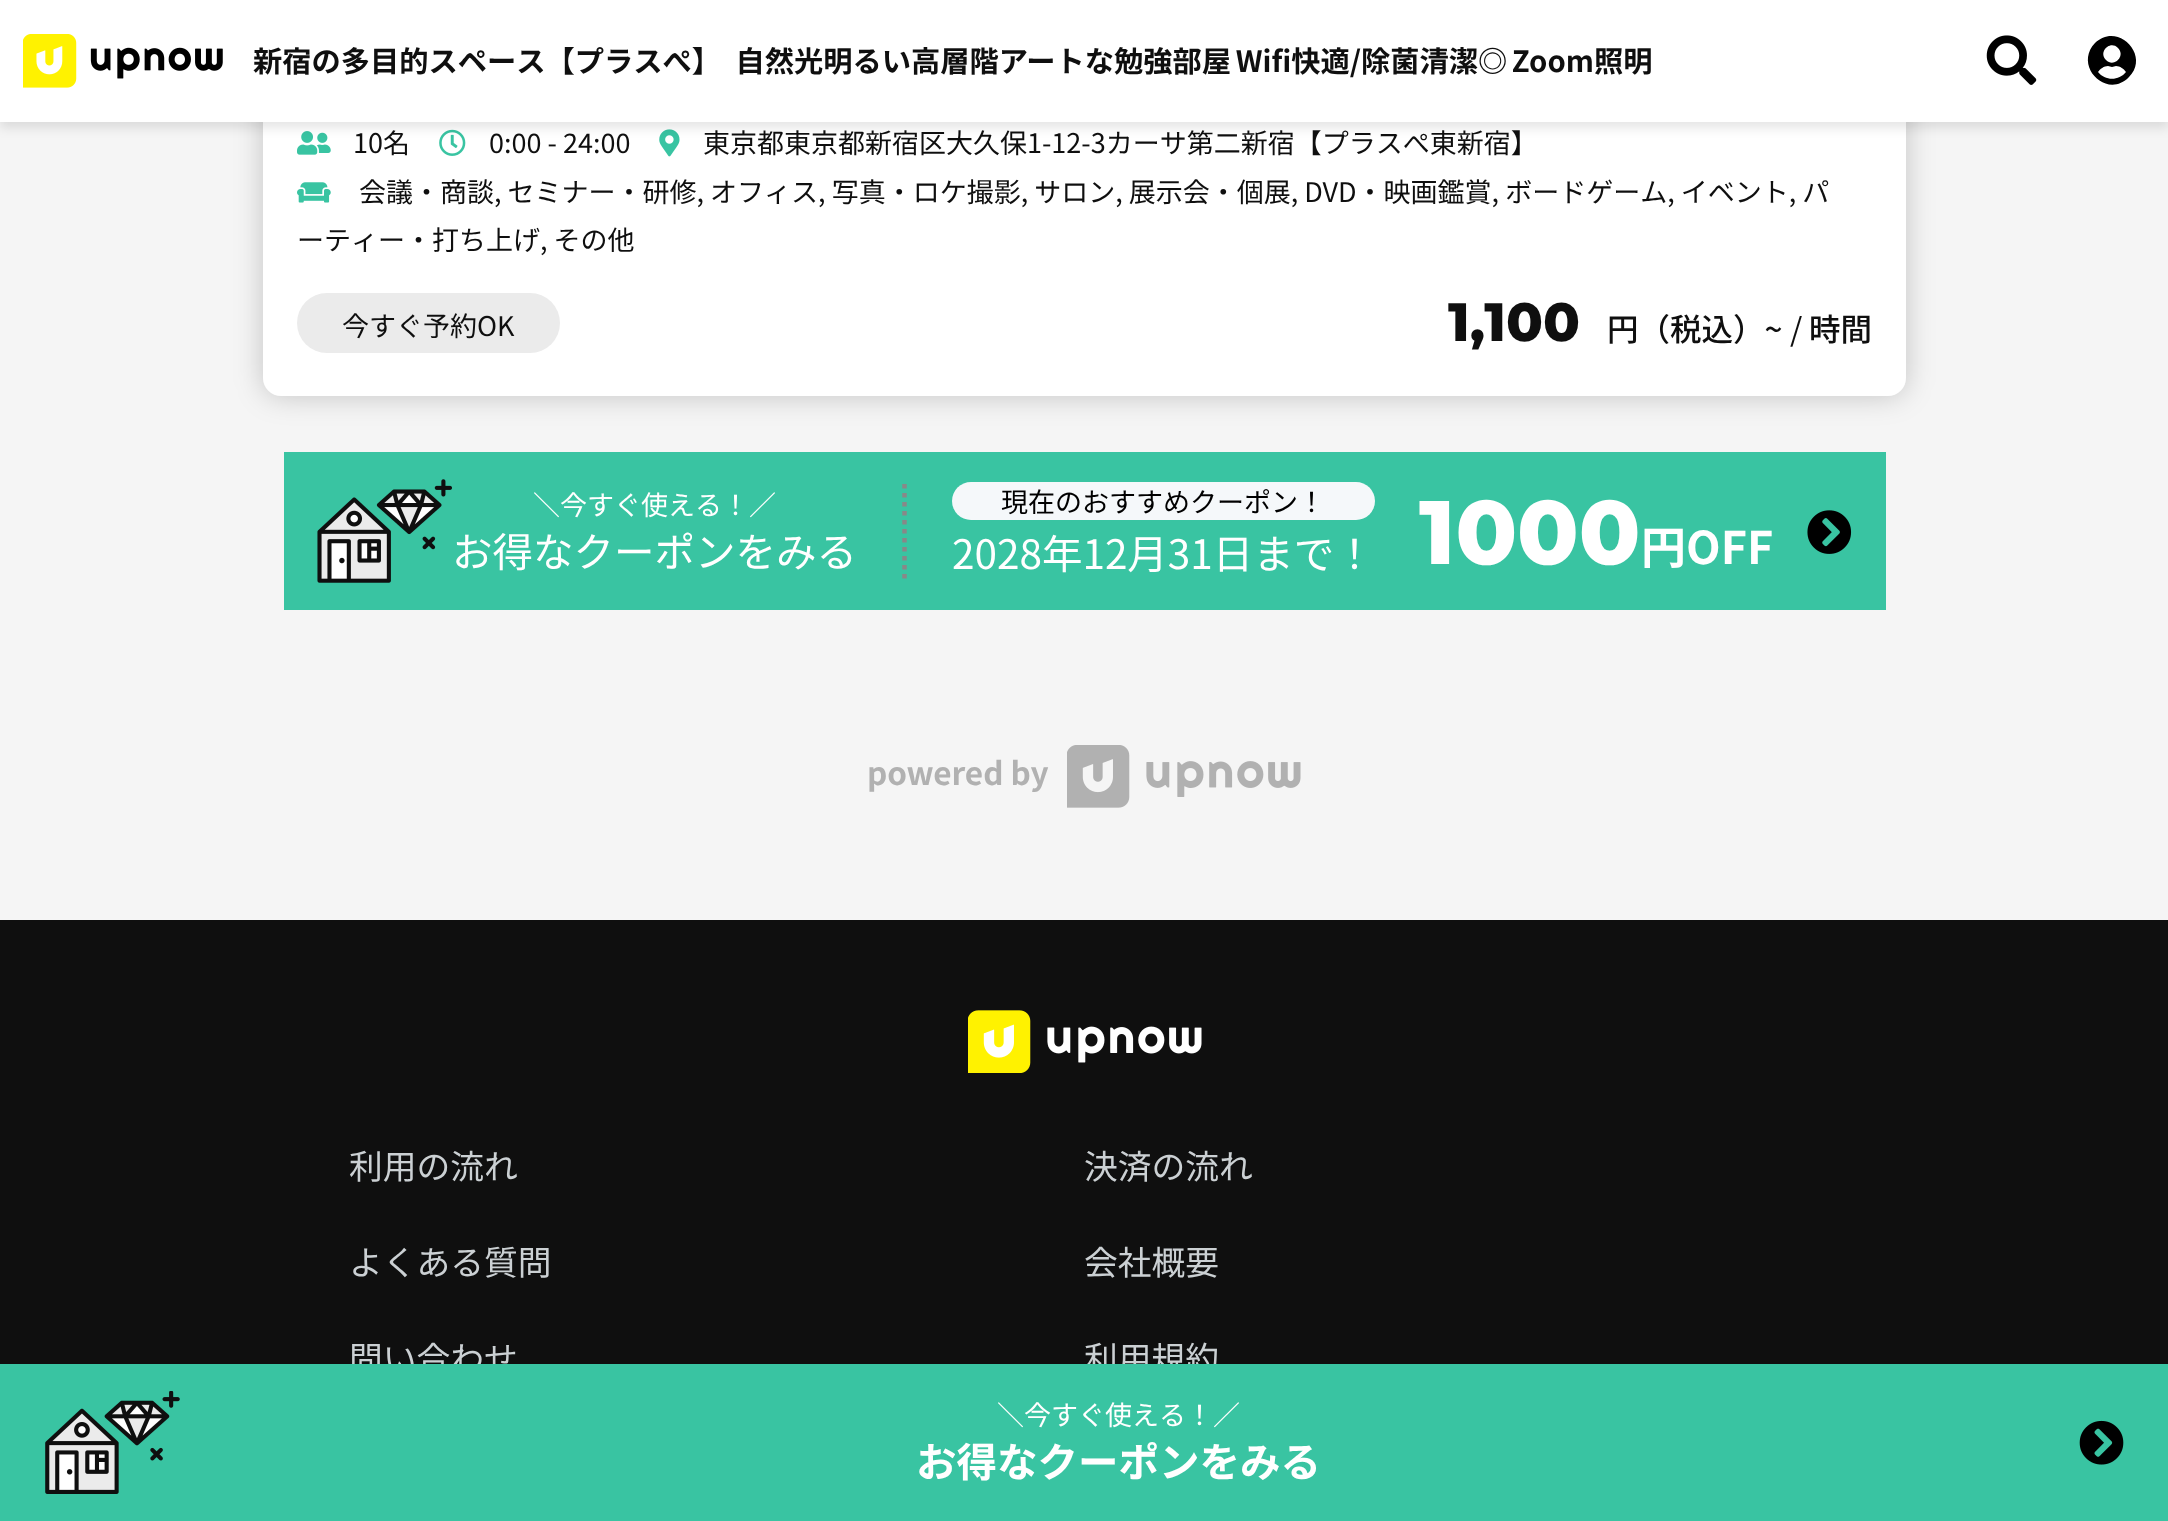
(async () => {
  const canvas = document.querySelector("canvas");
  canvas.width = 2168;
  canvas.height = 1521;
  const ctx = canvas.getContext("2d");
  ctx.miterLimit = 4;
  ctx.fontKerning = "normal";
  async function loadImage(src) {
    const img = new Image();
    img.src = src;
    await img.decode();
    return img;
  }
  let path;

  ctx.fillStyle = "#f5f5f5";
  ctx.fillRect(0, 0, 2168, 1521);
  ctx.fillStyle = "rgba(0, 0, 0, 0.2)";
  ctx.filter = "blur(14.5px)";
  ctx.beginPath();
  ctx.roundRect(263, -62, 1643, 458, 18);
  ctx.fill();
  ctx.filter = "none";
  ctx.fillStyle = "#ffffff";
  ctx.beginPath();
  ctx.roundRect(263, -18, 1643, 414, 18);
  ctx.fill();
  ctx.drawImage(await loadImage("img/3.png"), 297, 131, 34, 24);
  ctx.drawImage(await loadImage("img/4.png"), 439, 129, 27, 27);
  ctx.drawImage(await loadImage("img/5.png"), 659, 129, 21, 28);
  ctx.fillStyle = "rgba(0, 0, 0, 0.1)";
  ctx.filter = "blur(5.5px)";
  ctx.beginPath();
  ctx.rect(0, 7, 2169, 121);
  ctx.fill();
  ctx.filter = "none";
  ctx.fillStyle = "#ffffff";
  ctx.fillRect(0, 0, 2168, 122);
  ctx.drawImage(await loadImage("img/1.png"), 23, 34, 200, 54);
  ctx.drawImage(await loadImage("img/2.png"), 1986, 35, 51, 50);
  ctx.fillStyle = "#000000";
  path = new Path2D("M2095 43C2117 21 2151 55 2129 77C2107 100 2073 66 2095 43ZM2118 48C2110 40 2098 52 2106 60C2114 68 2126 56 2118 48ZM2098 72C2105 81 2119 81 2126 72C2124 69 2120 66 2116 66L2112 67L2108 66C2104 66 2100 69 2098 72Z");
  ctx.fill(path);
  ctx.drawImage(await loadImage("img/6.png"), 297, 182, 34, 21);
  ctx.fillStyle = "#ebebeb";
  ctx.beginPath();
  ctx.roundRect(297, 293, 263, 60, 30);
  ctx.fill();
  ctx.fillStyle = "#39c4a2";
  ctx.fillRect(284, 452, 1602, 158);
  ctx.drawImage(await loadImage("img/7.png"), 317, 479, 135, 104);
  path = new Path2D("M904.5 484V580.5");
  ctx.strokeStyle = "#888888";
  ctx.lineWidth = 4.5;
  ctx.setLineDash([4.5, 4.5]);
  ctx.stroke(path);
  ctx.fillStyle = "#f5f8fa";
  ctx.beginPath();
  ctx.roundRect(952, 482, 423, 38, 19);
  ctx.fill();
  ctx.drawImage(await loadImage("img/8.png"), 1807, 510, 45, 44);
  ctx.drawImage(await loadImage("img/11.png"), 1067, 745, 234, 63);
  ctx.fillStyle = "#0f0f0f";
  ctx.fillRect(0, 920, 2168, 444);
  ctx.drawImage(await loadImage("img/12.png"), 968, 1010, 234, 63);
  ctx.wordSpacing = "-2px";
  ctx.font = "bold 29.25px Noto Sans JP";
  ctx.fillText("新宿の多目的スペース【プラスぺ】　自然光明るい高層階アートな勉強部屋 Wifi快適/除菌清潔◎ Zoom照明", 253, 72);
  ctx.wordSpacing = "0px";
  ctx.font = "27px Noto Sans JP";
  for (const [text, x, y] of [
    ["10名", 353, 153],
    ["0:00 - 24:00", 489, 153],
    ["東京都東京都新宿区大久保1-12-3カーサ第二新宿【プラスぺ東新宿】", 703, 153],
    ["会議・商談, セミナー・研修, オフィス, 写真・ロケ撮影, サロン, 展示会・個展, DVD・映画鑑賞, ボードゲーム, イベント, パ", 359, 202],
    ["ーティー・打ち上げ, その他", 297, 250],
    ["今すぐ予約OK", 342, 336],
  ]) {
    ctx.fillText(text, x, y);
  }
  ctx.font = "800 54px Montserrat";
  ctx.fillText("1,100", 1448, 341);
  ctx.font = "500 31.5px Noto Sans JP";
  ctx.fillText("円（税込）~", 1607, 341);
  ctx.font = "31.5px Noto Sans JP";
  ctx.fillText("/", 1790, 341);
  ctx.font = "500 31.5px Noto Sans JP";
  ctx.fillText("時間", 1809, 341);
  ctx.font = "27px Noto Sans JP";
  ctx.fillStyle = "#ffffff";
  ctx.fillText("＼今すぐ使える！／", 533, 515);
  ctx.font = "40.5px Noto Sans JP";
  ctx.fillText("お得なクーポンをみる", 452, 567);
  ctx.font = "27px Noto Sans JP";
  ctx.fillStyle = "#000000";
  ctx.fillText("現在のおすすめクーポン！", 1001, 512);
  ctx.font = "40.5px Noto Sans JP";
  ctx.fillStyle = "#ffffff";
  ctx.fillText("2028年12月31日まで！", 952, 569);
  ctx.font = "800 90px Montserrat";
  ctx.fillText("1000", 1419, 564);
  ctx.font = "bold 45px Noto Sans JP";
  ctx.fillText("円OFF", 1641, 564);
  ctx.font = "bold 31.5px Noto Sans JP";
  ctx.fillStyle = "#b1b1b1";
  ctx.fillText("powered by", 867, 785);
  ctx.font = "33.75px Noto Sans JP";
  ctx.fillStyle = "#cbd0d3";
  for (const [text, x, y] of [
    ["利用の流れ", 349, 1179],
    ["決済の流れ", 1084, 1179],
    ["よくある質問", 349, 1275],
    ["会社概要", 1084, 1275],
    ["問い合わせ", 349, 1371],
    ["利用規約", 1084, 1371],
  ]) {
    ctx.fillText(text, x, y);
  }
  ctx.fillStyle = "#39c4a2";
  ctx.fillRect(0, 1364, 2168, 157);
  ctx.drawImage(await loadImage("img/10.png"), 2079, 1420, 45, 45);
  ctx.font = "bold 40.5px Noto Sans JP";
  ctx.fillStyle = "#ffffff";
  ctx.fillText("お得なクーポンをみる", 916, 1477);
  ctx.font = "27px Noto Sans JP";
  ctx.fillText("＼今すぐ使える！／", 997, 1425);
  ctx.drawImage(await loadImage("img/9.png"), 45, 1391, 135, 103);
})();
